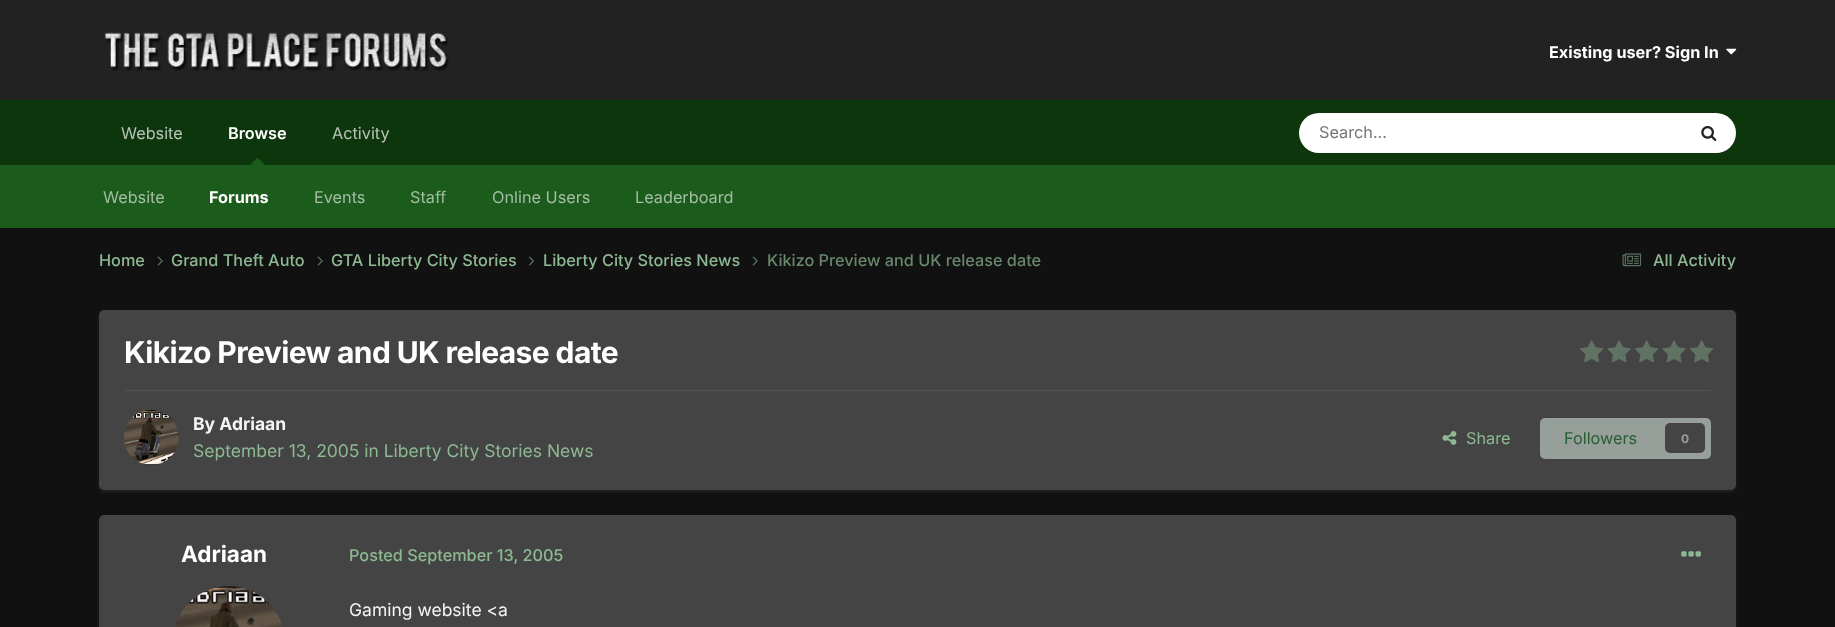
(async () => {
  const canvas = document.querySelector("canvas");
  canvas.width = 1835;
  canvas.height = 627;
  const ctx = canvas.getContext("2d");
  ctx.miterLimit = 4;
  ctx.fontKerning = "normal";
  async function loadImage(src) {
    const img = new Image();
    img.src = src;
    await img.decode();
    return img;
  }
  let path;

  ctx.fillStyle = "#111111";
  ctx.fillRect(0, 0, 1835, 627);
  ctx.fillStyle = "#222222";
  ctx.fillRect(0, 0, 1835, 100);
  ctx.drawImage(await loadImage("img/1.png"), 104, 32, 345, 39);
  ctx.drawImage(await loadImage("img/2.png"), 1726, 48, 11, 7);
  ctx.fillStyle = "#0e360d";
  ctx.fillRect(0, 100, 1835, 65);
  ctx.fillStyle = "#1b5b1b";
  path = new Path2D("M265 165H250L257.5 157.5Z");
  ctx.fill(path);
  ctx.fillStyle = "#ffffff";
  ctx.beginPath();
  ctx.roundRect(1299, 113, 437, 40, 20);
  ctx.fill();
  ctx.drawImage(await loadImage("img/3.png"), 1701, 126, 16, 16);
  ctx.fillStyle = "#1b5b1b";
  ctx.fillRect(0, 165, 1835, 63);
  ctx.drawImage(await loadImage("img/4.png"), 157, 256, 6, 10);
  ctx.drawImage(await loadImage("img/4.png"), 317, 256, 6, 10);
  ctx.drawImage(await loadImage("img/5.png"), 529, 256, 5, 10);
  ctx.drawImage(await loadImage("img/4.png"), 752, 256, 6, 10);
  ctx.drawImage(await loadImage("img/6.png"), 1622, 253, 20, 14);
  ctx.fillStyle = "rgba(237, 247, 239, 0.1)";
  ctx.filter = "blur(2.5px)";
  ctx.beginPath();
  ctx.roundRect(100, 314, 1635, 177, 4);
  ctx.fill();
  ctx.filter = "none";
  ctx.fillStyle = "#444444";
  ctx.beginPath();
  ctx.roundRect(99, 310, 1637, 180, 5);
  ctx.fill();
  ctx.drawImage(await loadImage("img/7.png"), 1580, 340, 23, 23);
  ctx.drawImage(await loadImage("img/8.png"), 1607, 340, 24, 23);
  ctx.drawImage(await loadImage("img/7.png"), 1635, 340, 23, 23);
  ctx.drawImage(await loadImage("img/8.png"), 1662, 340, 24, 23);
  ctx.drawImage(await loadImage("img/7.png"), 1690, 340, 23, 23);
  ctx.fillStyle = "#525252";
  ctx.fillRect(124, 390, 1587, 1);
  ctx.drawImage(await loadImage("img/9.png"), 124, 410, 55, 55);
  ctx.drawImage(await loadImage("img/10.png"), 1442, 431, 15, 14);
  ctx.fillStyle = "#969f99";
  ctx.beginPath();
  ctx.roundRect(1540, 418, 171, 41, 5);
  ctx.fill();
  ctx.fillStyle = "#444444";
  ctx.beginPath();
  ctx.roundRect(1665, 423, 40, 30, 5);
  ctx.fill();
  ctx.fillStyle = "rgba(237, 247, 239, 0.1)";
  ctx.filter = "blur(2.5px)";
  ctx.beginPath();
  ctx.roundRect(100, 519, 1635, 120, 4);
  ctx.fill();
  ctx.filter = "none";
  ctx.fillStyle = "#444444";
  ctx.beginPath();
  ctx.roundRect(99, 515, 1637, 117, 5);
  ctx.fill();
  ctx.drawImage(await loadImage("img/11.png"), 175, 586, 108, 41);
  ctx.drawImage(await loadImage("img/12.png"), 1681, 551, 20, 6);
  ctx.font = "bold 16.25px Inter";
  ctx.fillStyle = "#ffffff";
  ctx.fillText("Existing user? Sign In", 1549, 58);
  ctx.font = "16.25px Inter";
  ctx.fillStyle = "#b7c3b6";
  ctx.fillText("Website", 121, 139);
  ctx.fillText("Activity", 332, 139);
  ctx.font = "600 16.25px Inter";
  ctx.fillStyle = "#ffffff";
  ctx.fillText("Browse", 228, 139);
  ctx.font = "16.25px Inter";
  ctx.fillStyle = "#a4bda4";
  ctx.fillText("Website", 103, 203);
  ctx.font = "bold 16.25px Inter";
  ctx.fillStyle = "#ffffff";
  ctx.fillText("Forums", 209, 203);
  ctx.font = "16.25px Inter";
  ctx.fillStyle = "#a4bda4";
  for (const [text, x, y] of [
    ["Events", 314, 203],
    ["Staff", 410, 203],
    ["Online Users", 492, 203],
    ["Leaderboard", 635, 203],
  ]) {
    ctx.fillText(text, x, y);
  }
  ctx.fillStyle = "#757575";
  ctx.fillText("Search...", 1319, 138);
  ctx.font = "500 16.25px Inter";
  ctx.fillStyle = "#8db993";
  for (const [text, x, y] of [
    ["Home", 99, 266],
    ["Grand Theft Auto", 171, 266],
    ["GTA Liberty City Stories", 331, 266],
    ["Liberty City Stories News", 543, 266],
  ]) {
    ctx.fillText(text, x, y);
  }
  ctx.fillStyle = "#68876c";
  ctx.fillText("Kikizo Preview and UK release date", 767, 266);
  ctx.fillStyle = "#8db993";
  ctx.fillText("All Activity", 1653, 266);
  ctx.letterSpacing = "-0.6px";
  ctx.font = "bold 30px Inter";
  ctx.fillStyle = "#ffffff";
  ctx.fillText("Kikizo Preview and UK release date", 124, 363);
  ctx.letterSpacing = "0px";
  ctx.font = "bold 17.5px Inter";
  ctx.fillStyle = "#f3f6f4";
  ctx.fillText("By Adriaan", 193, 430);
  ctx.font = "17.5px Inter";
  ctx.fillStyle = "#8db993";
  ctx.fillText("September 13, 2005 in Liberty City Stories News", 193, 457);
  ctx.font = "16.25px Inter";
  ctx.fillText("Share", 1466, 444);
  ctx.fillStyle = "#295f34";
  ctx.fillText("Followers", 1564, 444);
  ctx.font = "bold 12px Inter";
  ctx.fillStyle = "#9c9d9c";
  ctx.fillText("0", 1681, 443);
  ctx.font = "bold 22.5px Inter";
  ctx.fillStyle = "#ffffff";
  ctx.fillText("Adriaan", 181, 562);
  ctx.font = "500 16.25px Inter";
  ctx.fillStyle = "#8db993";
  ctx.fillText("Posted September 13, 2005", 349, 561);
  ctx.font = "17.5px Inter";
  ctx.fillStyle = "#f3f6f4";
  ctx.fillText("Gaming website <a", 349, 616);
})();
